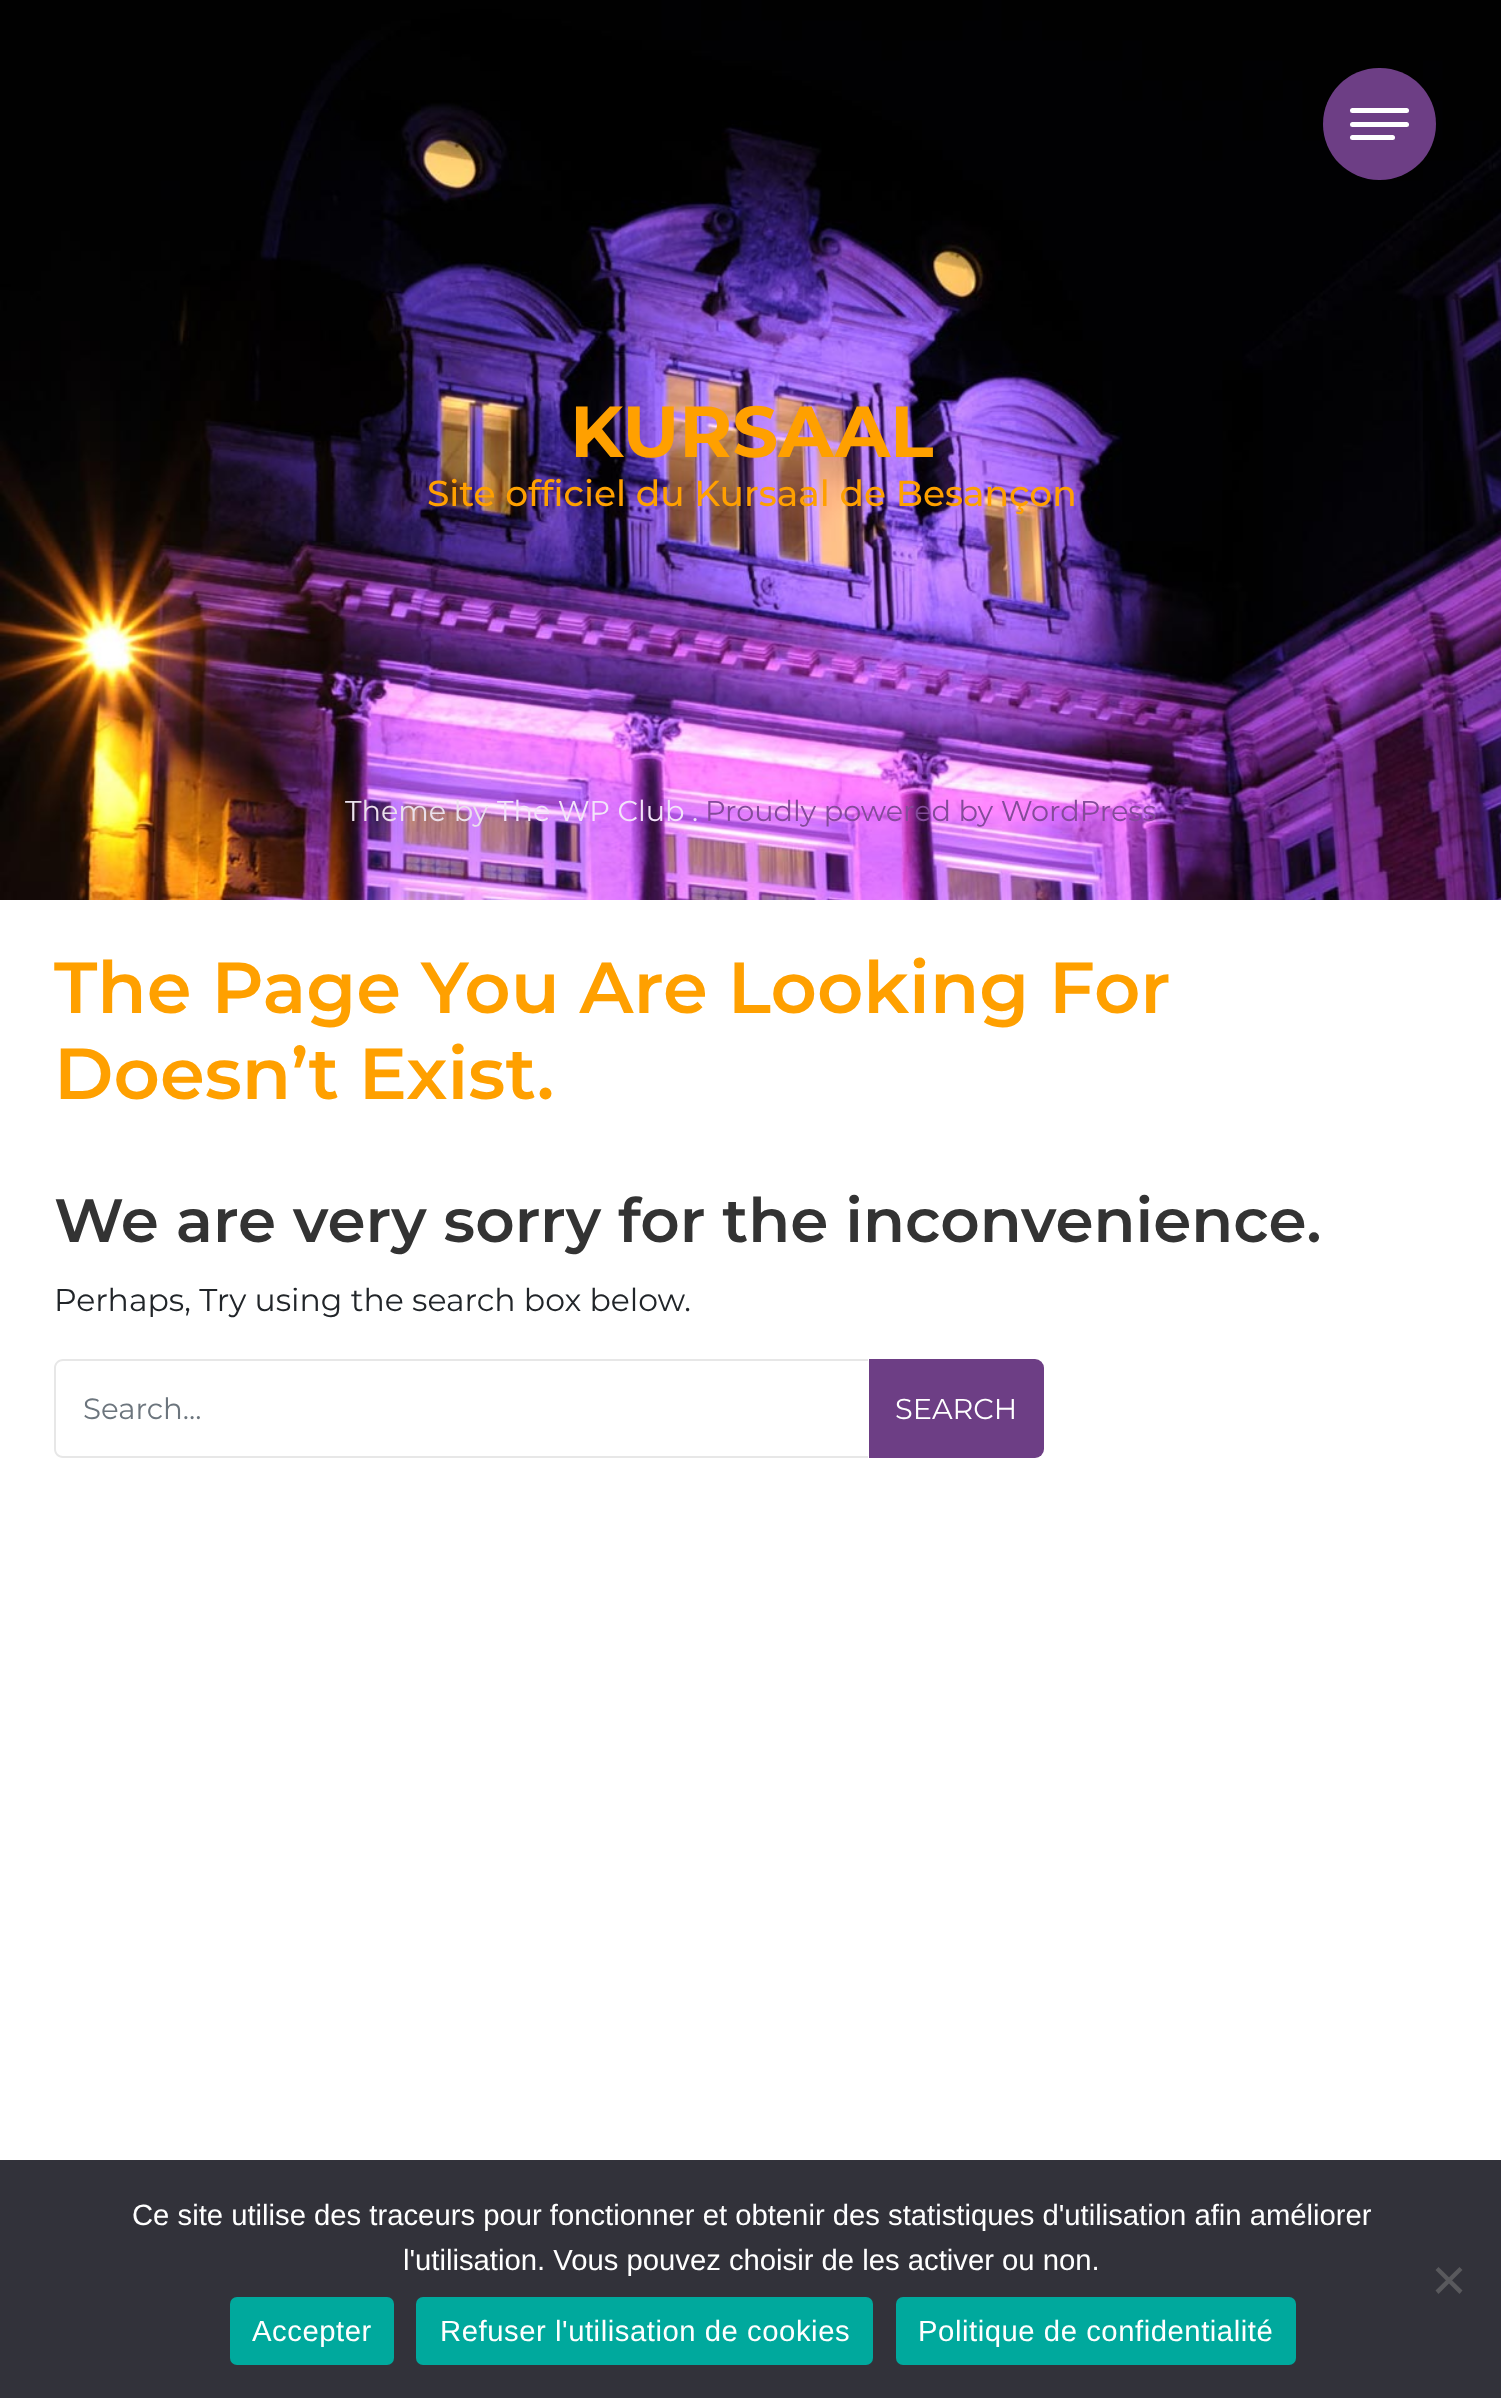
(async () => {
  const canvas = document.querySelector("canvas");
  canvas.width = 1501;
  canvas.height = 2398;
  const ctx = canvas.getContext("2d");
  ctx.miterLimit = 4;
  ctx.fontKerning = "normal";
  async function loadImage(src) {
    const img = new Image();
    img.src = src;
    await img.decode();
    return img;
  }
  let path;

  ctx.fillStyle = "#ffffff";
  ctx.fillRect(0, 0, 1501, 2398);
  ctx.drawImage(await loadImage("img/1.png"), 0, 0, 1501, 900);
  ctx.fillStyle = "#6d3e85";
  ctx.beginPath();
  ctx.roundRect(1323, 68, 113, 112, 56);
  ctx.fill();
  ctx.fillStyle = "#ffffff";
  ctx.beginPath();
  ctx.roundRect(1350, 108, 59, 5, 2.5);
  ctx.fill();
  ctx.beginPath();
  ctx.roundRect(1350, 122, 59, 5, 2.5);
  ctx.fill();
  ctx.beginPath();
  ctx.roundRect(1350, 135, 45, 5, 2.5);
  ctx.fill();
  ctx.fillStyle = "#e7e7e7";
  path = new Path2D("M63 1359H868V1458H63C58 1458 54 1454 54 1449V1368C54 1363 58 1359 63 1359ZM63 1361H868V1456H63C59 1456 56 1453 56 1449V1368C56 1364 59 1361 63 1361Z");
  ctx.fill(path, "evenodd");
  ctx.fillStyle = "#6d3e85";
  ctx.beginPath();
  ctx.roundRect(869, 1359, 175, 99, [0, 9, 9, 0]);
  ctx.fill();
  ctx.fillStyle = "#32323a";
  ctx.fillRect(0, 2160, 1501, 238);
  ctx.fillStyle = "#59595d";
  path = new Path2D("M1459.5 2267L1462.5 2270L1438.5 2294L1435.5 2290.5Z");
  ctx.fill(path);
  path = new Path2D("M1435.5 2270L1438.5 2267L1462.5 2290.5L1459.5 2294Z");
  ctx.fill(path);
  ctx.fillStyle = "#00a99d";
  ctx.beginPath();
  ctx.roundRect(230, 2297, 164, 68, 7);
  ctx.fill();
  ctx.beginPath();
  ctx.roundRect(416, 2297, 457, 68, 7);
  ctx.fill();
  ctx.beginPath();
  ctx.roundRect(896, 2297, 400, 68, 7);
  ctx.fill();
  ctx.font = "bold 72px Montserrat";
  ctx.fillStyle = "#ffa000";
  ctx.fillText("KURSAAL", 570, 457);
  ctx.font = "500 36px Montserrat";
  ctx.fillText("Site officiel du Kursaal de Besançon", 427, 506);
  ctx.font = "28.75px Montserrat";
  ctx.fillStyle = "#ebe0ec";
  ctx.fillText("Theme by", 345, 821);
  ctx.fillStyle = "#f3e3f9";
  ctx.fillText("The WP Club", 497, 821);
  ctx.fillStyle = "#eeddf9";
  ctx.fillText(".", 692, 821);
  ctx.fillStyle = "#844a9a";
  ctx.fillText("Proudly powered by WordPress", 705, 821);
  ctx.font = "600 72px Montserrat";
  ctx.fillStyle = "#ffa000";
  ctx.fillText("The Page You Are Looking For", 54, 1013);
  ctx.fillText("Doesn’t Exist.", 54, 1099);
  ctx.font = "600 61.25px Montserrat";
  ctx.fillStyle = "#333333";
  ctx.fillText("We are very sorry for the inconvenience.", 54, 1242);
  ctx.font = "31.5px Montserrat";
  ctx.fillStyle = "#212529";
  ctx.fillText("Perhaps, Try using the search box below.", 54, 1311);
  ctx.font = "29.25px Montserrat";
  ctx.fillStyle = "#6c757d";
  ctx.fillText("Search...", 83, 1419);
  ctx.font = "28.75px Montserrat";
  ctx.fillStyle = "#ffffff";
  ctx.fillText("SEARCH", 895, 1419);
  ctx.font = "29.25px Liberation Sans";
  ctx.fillText("Ce site utilise des traceurs pour fonctionner et obtenir des statistiques d'utilisation afin améliorer", 132, 2225);
  ctx.fillText("l'utilisation. Vous pouvez choisir de les activer ou non.", 403, 2270);
  ctx.letterSpacing = "0.55px";
  for (const [text, x, y] of [
    ["Accepter", 252, 2341],
    ["Refuser l'utilisation de cookies", 440, 2341],
    ["Politique de confidentialité", 918, 2341],
  ]) {
    ctx.fillText(text, x, y);
  }
})();
